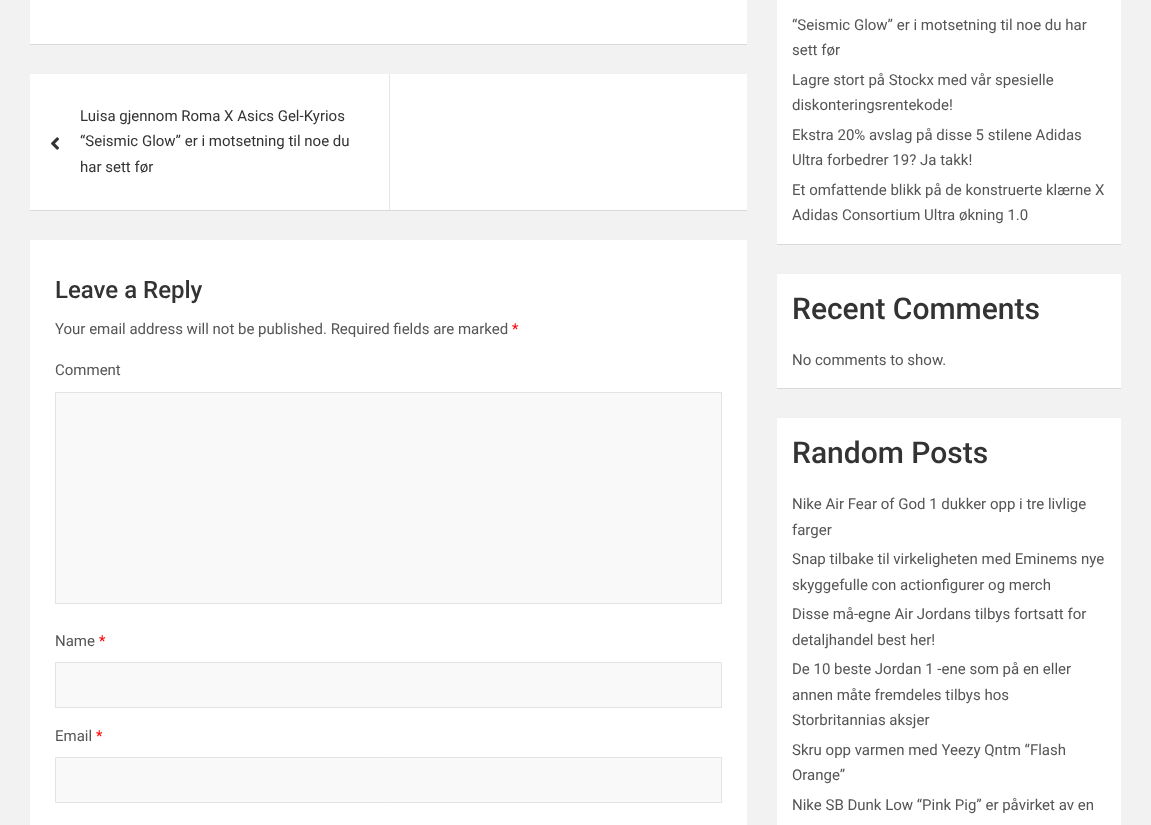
(async () => {
  const canvas = document.querySelector("canvas");
  canvas.width = 1151;
  canvas.height = 825;
  const ctx = canvas.getContext("2d");
  ctx.miterLimit = 4;
  ctx.fontKerning = "normal";
  async function loadImage(src) {
    const img = new Image();
    img.src = src;
    await img.decode();
    return img;
  }

  ctx.fillStyle = "#f2f2f2";
  ctx.fillRect(0, 0, 1151, 825);
  ctx.fillStyle = "rgba(0, 0, 0, 0.1)";
  ctx.filter = "blur(0.5px)";
  ctx.beginPath();
  ctx.rect(30, -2, 717, 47);
  ctx.fill();
  ctx.filter = "none";
  ctx.fillStyle = "#ffffff";
  ctx.fillRect(30, 0, 717, 44);
  ctx.fillStyle = "rgba(0, 0, 0, 0.1)";
  ctx.filter = "blur(0.5px)";
  ctx.beginPath();
  ctx.rect(30, 75, 717, 136);
  ctx.fill();
  ctx.filter = "none";
  ctx.fillStyle = "#ffffff";
  ctx.fillRect(30, 74, 717, 136);
  ctx.drawImage(await loadImage("img/1.png"), 51, 137, 8, 13);
  ctx.fillStyle = "#e6e6e6";
  ctx.fillRect(389, 74, 1, 136);
  ctx.fillStyle = "#ffffff";
  ctx.fillRect(30, 240, 717, 585);
  ctx.fillStyle = "#f9f9f9";
  ctx.beginPath();
  ctx.rect(55.5, 392.5, 666, 211);
  ctx.fill();
  ctx.strokeStyle = "#e3e3e3";
  ctx.stroke();
  ctx.beginPath();
  ctx.rect(55.5, 662.5, 666, 45);
  ctx.fill();
  ctx.stroke();
  ctx.beginPath();
  ctx.rect(55.5, 757.5, 666, 45);
  ctx.fill();
  ctx.stroke();
  ctx.fillStyle = "rgba(0, 0, 0, 0.1)";
  ctx.filter = "blur(0.5px)";
  ctx.beginPath();
  ctx.rect(777, -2, 344, 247);
  ctx.fill();
  ctx.filter = "none";
  ctx.fillStyle = "#ffffff";
  ctx.fillRect(777, 0, 344, 244);
  ctx.fillStyle = "rgba(0, 0, 0, 0.1)";
  ctx.filter = "blur(0.5px)";
  ctx.beginPath();
  ctx.rect(777, 275, 344, 114);
  ctx.fill();
  ctx.filter = "none";
  ctx.fillStyle = "#ffffff";
  ctx.fillRect(777, 274, 344, 114);
  ctx.fillRect(777, 418, 344, 407);
  ctx.font = "15px Roboto";
  ctx.fillStyle = "#333333";
  for (const [text, x, y] of [
    ["Luisa gjennom Roma X Asics Gel-Kyrios", 80, 121],
    ["“Seismic Glow” er i motsetning til noe du", 80, 146],
    ["har sett før", 80, 172],
  ]) {
    ctx.fillText(text, x, y);
  }
  ctx.font = "500 24px Roboto";
  ctx.fillText("Leave a Reply", 55, 298);
  ctx.font = "15px Roboto";
  ctx.fillStyle = "#555555";
  ctx.fillText("Your email address will not be published. Required fields are marked", 55, 334);
  ctx.fillStyle = "#ff0000";
  ctx.fillText("*", 512, 334);
  ctx.fillStyle = "#555555";
  ctx.fillText("Comment", 55, 375);
  ctx.fillText("Name", 55, 646);
  ctx.fillStyle = "#ff0000";
  ctx.fillText("*", 99, 646);
  ctx.fillStyle = "#555555";
  ctx.fillText("Email", 55, 741);
  ctx.fillStyle = "#ff0000";
  ctx.fillText("*", 96, 741);
  ctx.fillStyle = "#555555";
  for (const [text, x, y] of [
    ["“Seismic Glow” er i motsetning til noe du har", 792, 30],
    ["sett før", 792, 55],
    ["Lagre stort på Stockx med vår spesielle", 792, 85],
    ["diskonteringsrentekode!", 792, 110],
    ["Ekstra 20% avslag på disse 5 stilene Adidas", 792, 140],
    ["Ultra forbedrer 19? Ja takk!", 792, 165],
    ["Et omfattende blikk på de konstruerte klærne X", 792, 195],
    ["Adidas Consortium Ultra økning 1.0", 792, 220],
  ]) {
    ctx.fillText(text, x, y);
  }
  ctx.font = "500 30px Roboto";
  ctx.fillStyle = "#333333";
  ctx.fillText("Recent Comments", 792, 319);
  ctx.font = "15px Roboto";
  ctx.fillStyle = "#555555";
  ctx.fillText("No comments to show.", 792, 365);
  ctx.font = "500 30px Roboto";
  ctx.fillStyle = "#333333";
  ctx.fillText("Random Posts", 792, 463);
  ctx.font = "15px Roboto";
  ctx.fillStyle = "#555555";
  for (const [text, x, y] of [
    ["Nike Air Fear of God 1 dukker opp i tre livlige", 792, 509],
    ["farger", 792, 535],
    ["Snap tilbake til virkeligheten med Eminems nye", 792, 564],
    ["skyggefulle con actionfigurer og merch", 792, 590],
    ["Disse må-egne Air Jordans tilbys fortsatt for", 792, 619],
    ["detaljhandel best her!", 792, 645],
    ["De 10 beste Jordan 1 -ene som på en eller", 792, 674],
    ["annen måte fremdeles tilbys hos", 792, 700],
    ["Storbritannias aksjer", 792, 725],
    ["Skru opp varmen med Yeezy Qntm “Flash", 792, 755],
    ["Orange”", 792, 780],
    ["Nike SB Dunk Low “Pink Pig” er påvirket av en", 792, 810],
  ]) {
    ctx.fillText(text, x, y);
  }
})();
